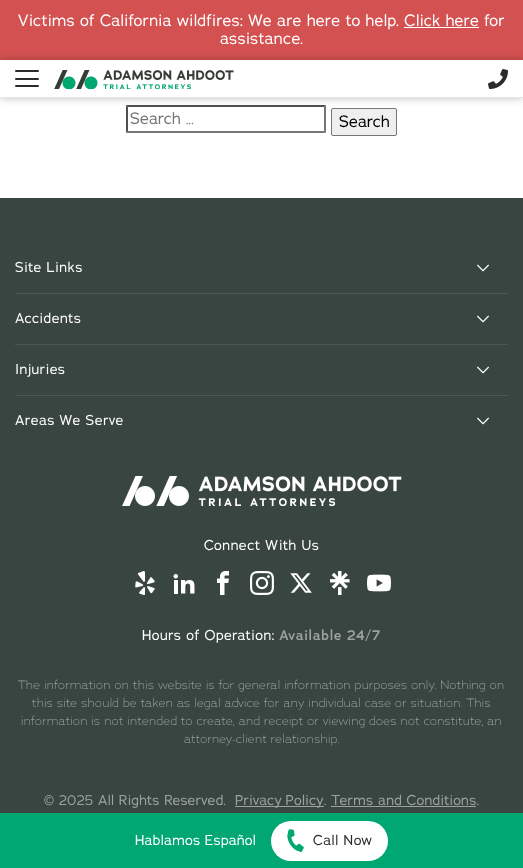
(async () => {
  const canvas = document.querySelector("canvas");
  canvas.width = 523;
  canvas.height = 868;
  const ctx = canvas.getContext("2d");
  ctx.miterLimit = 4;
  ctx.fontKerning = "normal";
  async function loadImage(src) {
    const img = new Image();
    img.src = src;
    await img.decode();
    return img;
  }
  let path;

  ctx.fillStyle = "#ffffff";
  ctx.fillRect(0, 0, 523, 868);
  ctx.fillStyle = "#d35151";
  ctx.fillRect(0, 0, 523, 60);
  ctx.fillStyle = "#ffffff";
  ctx.fillRect(404, 27, 75, 1);
  ctx.fillStyle = "#4f4f4f";
  path = new Path2D("M126 105H326L324 107H128Z");
  ctx.fill(path);
  ctx.fillStyle = "#767676";
  path = new Path2D("M326 105V133L324 131V107Z");
  ctx.fill(path);
  path = new Path2D("M326 133H126L128 131H324Z");
  ctx.fill(path);
  ctx.fillStyle = "#4f4f4f";
  path = new Path2D("M126 133V105L128 107V131Z");
  ctx.fill(path);
  ctx.fillStyle = "#efefef";
  ctx.beginPath();
  ctx.roundRect(331.5, 108.5, 65, 27, 1.5);
  ctx.fill();
  ctx.strokeStyle = "#767676";
  ctx.stroke();
  ctx.fillStyle = "rgba(0, 0, 0, 0.25)";
  ctx.filter = "blur(4px)";
  ctx.beginPath();
  ctx.rect(0, 60, 523, 38);
  ctx.fill();
  ctx.filter = "none";
  ctx.fillStyle = "#ffffff";
  ctx.fillRect(0, 60, 523, 37);
  ctx.fillStyle = "#e6e6e6";
  ctx.fillRect(0, 97, 523, 1);
  ctx.fillStyle = "#2a2c27";
  ctx.beginPath();
  ctx.roundRect(15, 78, 24, 2, 1);
  ctx.fill();
  ctx.beginPath();
  ctx.roundRect(15, 70, 24, 2, 1);
  ctx.fill();
  ctx.beginPath();
  ctx.roundRect(15, 85, 24, 2, 1);
  ctx.fill();
  ctx.drawImage(await loadImage("img/1.png"), 54, 70, 180, 19);
  ctx.drawImage(await loadImage("img/2.png"), 488, 69, 20, 20);
  ctx.fillStyle = "#394541";
  ctx.fillRect(0, 198, 523, 615);
  ctx.drawImage(await loadImage("img/3.png"), 477, 264, 12, 8);
  ctx.fillStyle = "#4d5854";
  ctx.fillRect(15, 293, 493, 1);
  ctx.drawImage(await loadImage("img/3.png"), 477, 315, 12, 8);
  ctx.fillRect(15, 344, 493, 1);
  ctx.drawImage(await loadImage("img/3.png"), 477, 366, 12, 8);
  ctx.fillRect(15, 395, 493, 1);
  ctx.drawImage(await loadImage("img/3.png"), 477, 417, 12, 8);
  ctx.drawImage(await loadImage("img/4.png"), 122, 476, 280, 30);
  ctx.drawImage(await loadImage("img/5.png"), 135, 571, 20, 24);
  ctx.drawImage(await loadImage("img/6.png"), 173, 574, 22, 20);
  ctx.drawImage(await loadImage("img/7.png"), 217, 571, 12, 24);
  ctx.drawImage(await loadImage("img/8.png"), 250, 571, 24, 24);
  ctx.drawImage(await loadImage("img/9.png"), 290, 573, 22, 20);
  ctx.drawImage(await loadImage("img/10.png"), 330, 571, 20, 24);
  ctx.drawImage(await loadImage("img/11.png"), 367, 574, 24, 18);
  for (const [x, y, w, h, color] of [
    [235, 806, 89, 1, "#9ba2a0"],
    [331, 806, 145, 1, "#9ba2a0"],
    [0, 813, 523, 55, "#00a771"],
  ]) {
    ctx.fillStyle = color;
    ctx.fillRect(x, y, w, h);
  }
  ctx.fillStyle = "#ffffff";
  ctx.beginPath();
  ctx.roundRect(271, 821, 117, 40, 20);
  ctx.fill();
  ctx.drawImage(await loadImage("img/12.png"), 287, 829, 17, 23);
  ctx.letterSpacing = "0.25px";
  ctx.font = "16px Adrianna";
  ctx.fillText("Victims of California wildfires: We are here to help. Click here for", 18, 26);
  ctx.fillText("assistance.", 220, 44);
  ctx.letterSpacing = "0px";
  ctx.fillStyle = "#757575";
  ctx.fillText("Search …", 130, 124);
  ctx.fillStyle = "#000000";
  ctx.fillText("Search", 339, 127);
  ctx.letterSpacing = "0.5px";
  ctx.font = "14px Adrianna";
  ctx.fillStyle = "#ffffff";
  for (const [text, x, y] of [
    ["Site Links", 15, 272],
    ["Accidents", 15, 323],
    ["Injuries", 15, 374],
    ["Areas We Serve", 15, 425],
    ["Connect With Us", 204, 550],
    ["Hours of Operation:", 142, 640],
  ]) {
    ctx.fillText(text, x, y);
  }
  ctx.font = "600 14px Adrianna";
  ctx.fillStyle = "#9ba2a0";
  ctx.fillText("Available 24/7", 279, 640);
  ctx.letterSpacing = "0.25px";
  ctx.font = "300 12px Adrianna";
  for (const [text, x, y] of [
    ["The information on this website is for general information purposes only. Nothing on", 18, 689],
    ["this site should be taken as legal advice for any individual case or situation. This", 32, 707],
    ["information is not intended to create, and receipt or viewing does not constitute, an", 21, 725],
    ["attorney-client relationship.", 184, 743],
  ]) {
    ctx.fillText(text, x, y);
  }
  ctx.font = "14px Adrianna";
  ctx.fillText("© 2025 All Rights Reserved.", 44, 805);
  ctx.wordSpacing = "-1px";
  ctx.fillText("Privacy Policy", 235, 805);
  ctx.wordSpacing = "0px";
  ctx.fillText(". Terms and Conditions.", 324, 805);
  ctx.fillStyle = "#ffffff";
  ctx.fillText("Hablamos Español", 135, 845);
  ctx.letterSpacing = "0.5px";
  ctx.fillStyle = "#2a2c27";
  ctx.fillText("Call Now", 313, 845);
})();
